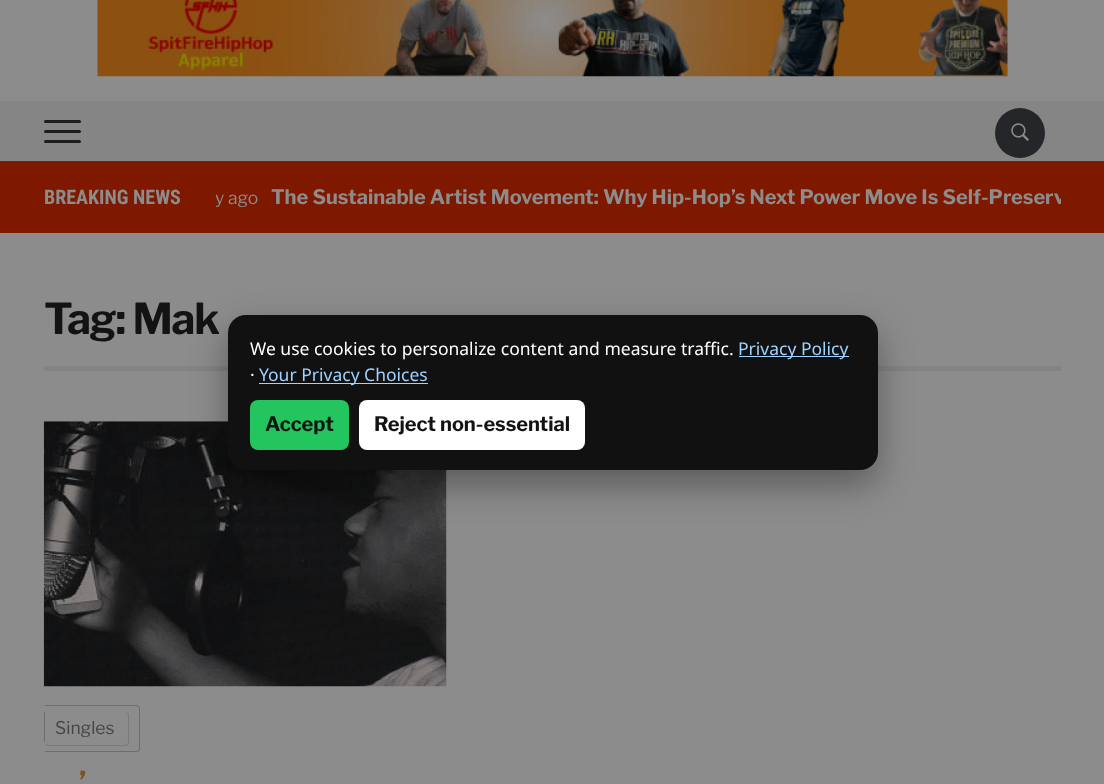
(async () => {
  const canvas = document.querySelector("canvas");
  canvas.width = 1104;
  canvas.height = 784;
  const ctx = canvas.getContext("2d");
  ctx.miterLimit = 4;
  ctx.fontKerning = "normal";
  async function loadImage(src) {
    const img = new Image();
    img.src = src;
    await img.decode();
    return img;
  }
  let path;

  ctx.fillStyle = "#8c8c8c";
  ctx.fillRect(0, 0, 1104, 784);
  ctx.drawImage(await loadImage("img/1.png"), 97, 0, 911, 77);
  ctx.fillStyle = "#858585";
  ctx.fillRect(0, 101, 1104, 60);
  ctx.fillStyle = "#1d1e1f";
  ctx.beginPath();
  ctx.roundRect(44, 120, 37, 3, 1.5);
  ctx.fill();
  ctx.beginPath();
  ctx.roundRect(44, 130, 37, 3, 1.5);
  ctx.fill();
  ctx.beginPath();
  ctx.roundRect(44, 140, 37, 3, 1.5);
  ctx.fill();
  ctx.fillStyle = "#24262a";
  ctx.beginPath();
  ctx.arc(1020, 133, 25, 0, Math.PI * 2);
  ctx.fill();
  ctx.drawImage(await loadImage("img/2.png"), 1011, 123, 18, 18);
  for (const [x, y, w, h, color] of [
    [0, 162, 1104, 71, "#7e1900"],
    [0, 161, 1104, 1, "#7f1f07"],
    [44, 366, 1017, 5, "#838383"],
  ]) {
    ctx.fillStyle = color;
    ctx.fillRect(x, y, w, h);
  }
  ctx.drawImage(await loadImage("img/3.png"), 43, 421, 404, 266);
  ctx.fillStyle = "#6c6c6c";
  path = new Path2D("M48 710H115V744H48C45 744 44 742 44 740V714C44 712 45 710 48 710ZM48 711H115V742H48C46 742 45 741 45 740V714C45 712 46 711 48 711Z");
  ctx.fill(path, "evenodd");
  ctx.fillStyle = "#8c8c8c";
  ctx.beginPath();
  ctx.roundRect(45, 705, 95, 48, [0, 4, 4, 0]);
  ctx.fill();
  ctx.fillStyle = "#6c6c6c";
  path = new Path2D("M45 705H136C138 705 140 707 140 709V749C140 751 138 752 136 752H45ZM45 706H136C138 706 139 707 139 709V749C139 750 138 751 136 751H45Z");
  ctx.fill(path, "evenodd");
  ctx.fillStyle = "rgba(0, 0, 0, 0.35)";
  ctx.filter = "blur(17.5px)";
  ctx.beginPath();
  ctx.roundRect(228, 330, 650, 155, 18);
  ctx.fill();
  ctx.filter = "none";
  ctx.fillStyle = "#111111";
  ctx.beginPath();
  ctx.roundRect(228, 315, 650, 155, 18);
  ctx.fill();
  ctx.fillStyle = "#9fd2ff";
  ctx.fillRect(739, 356, 110, 1);
  ctx.fillRect(259, 383, 169, 1);
  ctx.fillStyle = "#22c55e";
  ctx.beginPath();
  ctx.roundRect(250, 400, 99, 50, 8);
  ctx.fill();
  ctx.fillStyle = "#ffffff";
  ctx.beginPath();
  ctx.roundRect(359, 400, 226, 50, 8);
  ctx.fill();
  ctx.font = "bold 20px Roboto Condensed";
  ctx.fillStyle = "#8c8c8c";
  ctx.fillText("BREAKING NEWS", 44, 204);
  ctx.save();
  ctx.beginPath();
  ctx.rect(216, 175, 845, 44);
  ctx.clip();
  ctx.font = "17.5px Libre Franklin";
  ctx.fillText("y ago", 215, 204);
  ctx.font = "bold 20px Libre Franklin";
  ctx.fillText("The Sustainable Artist Movement: Why Hip-Hop’s Next Power Move Is Self-Preserv", 271, 204);
  ctx.restore();
  ctx.letterSpacing = "-1.25px";
  ctx.font = "bold 42.5px Libre Franklin";
  ctx.fillStyle = "#131313";
  ctx.fillText("Tag: Mak", 44, 334);
  ctx.letterSpacing = "0px";
  ctx.font = "17.5px Libre Franklin";
  ctx.fillStyle = "#464646";
  ctx.fillText("Singles", 55, 734);
  ctx.fillStyle = "#7a7a7a";
  path = new Path2D("M49 711H125C127 711 129 713 129 715V742C129 745 127 746 125 746H49C47 746 45 745 45 742V715C45 713 47 711 49 711ZM49 711H125C126 711 128 713 128 715V742C128 744 126 745 125 745H49C47 745 45 744 45 742V715C45 713 47 711 49 711Z");
  ctx.fill(path, "evenodd");
  ctx.font = "bold 30px Libre Franklin";
  ctx.fillStyle = "#7a541c";
  ctx.fillText("’", 79, 793);
  ctx.font = "17.5px Noto Sans";
  ctx.fillStyle = "#ffffff";
  ctx.fillText("We use cookies to personalize content and measure traffic.", 250, 355);
  ctx.fillStyle = "#9fd2ff";
  ctx.fillText("Privacy Policy", 738, 355);
  ctx.fillStyle = "#ffffff";
  ctx.fillText("·", 250, 381);
  ctx.fillStyle = "#9fd2ff";
  ctx.fillText("Your Privacy Choices", 259, 381);
  ctx.font = "bold 20px Libre Franklin";
  ctx.fillStyle = "#131313";
  ctx.fillText("Accept", 265, 431);
  ctx.fillText("Reject non-essential", 374, 431);
})();
